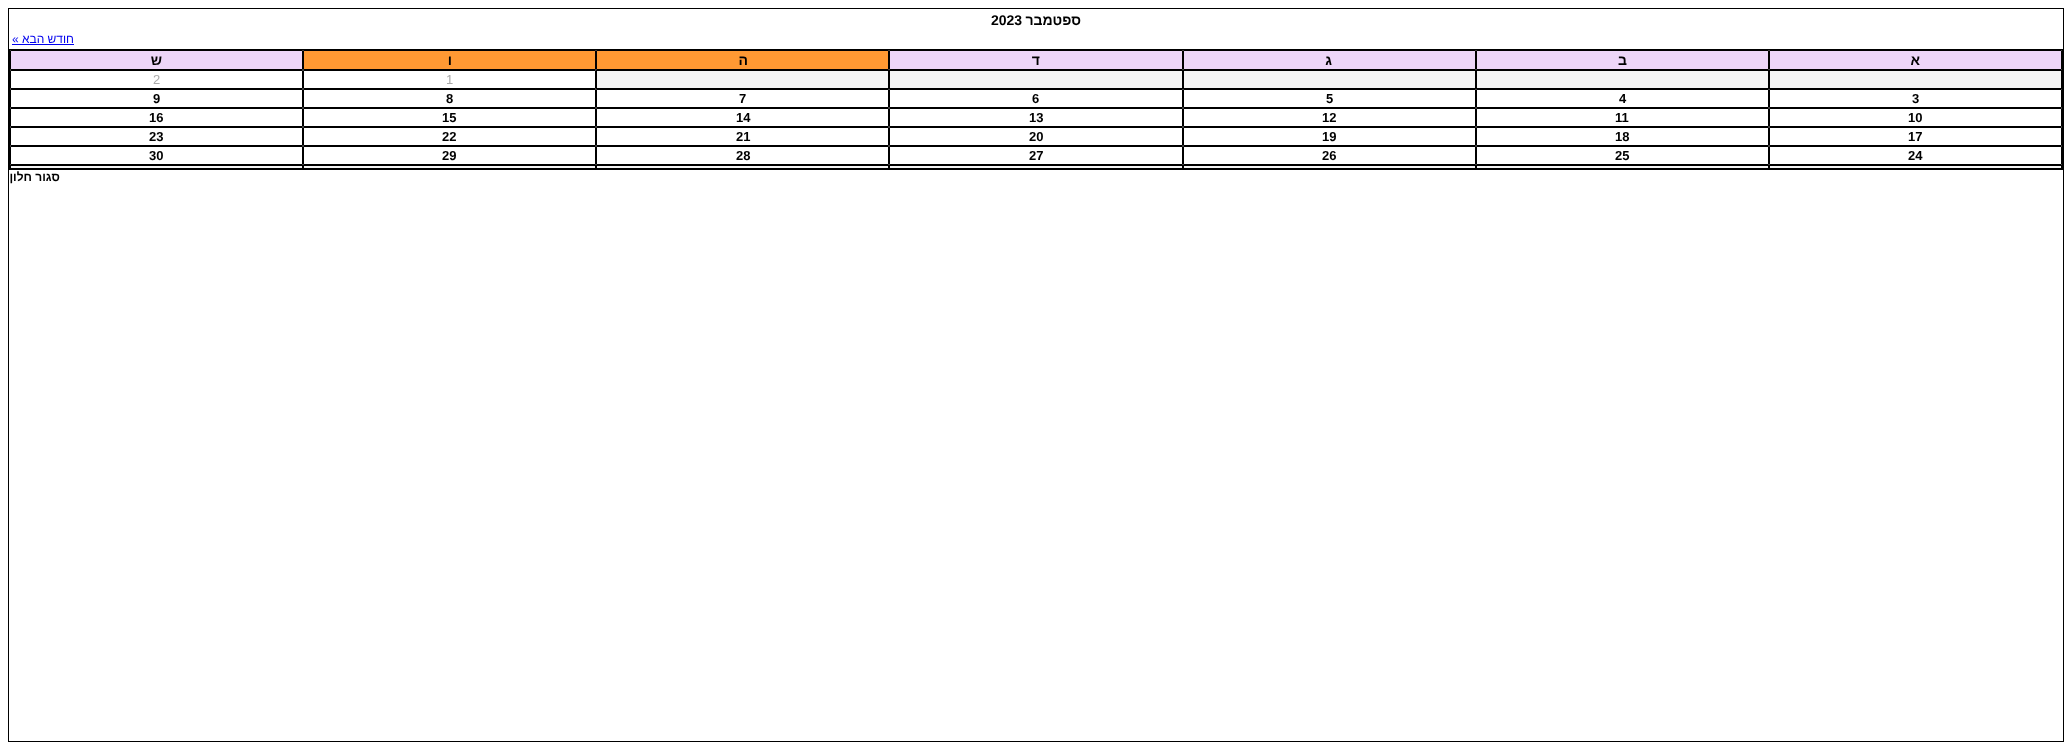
(async () => {
  const canvas = document.querySelector("canvas");
  canvas.width = 2072;
  canvas.height = 750;
  const ctx = canvas.getContext("2d");
  ctx.miterLimit = 4;
  ctx.fontKerning = "normal";

  ctx.fillStyle = "#ffffff";
  ctx.fillRect(0, 0, 2072, 750);
  ctx.strokeStyle = "#000000";
  ctx.strokeRect(8.5, 8.5, 2055, 733);
  ctx.fillStyle = "#0000ee";
  ctx.fillRect(12, 44, 62, 1);
  ctx.fillStyle = "#f5f5f5";
  ctx.fillRect(11, 71, 2050, 97);
  ctx.strokeRect(9.5, 49.5, 2053, 120);
  ctx.fillStyle = "#edd6f8";
  ctx.beginPath();
  ctx.rect(10.5, 50.5, 292, 19);
  ctx.fill();
  ctx.stroke();
  ctx.fillStyle = "#ff9933";
  ctx.beginPath();
  ctx.rect(303.5, 50.5, 292, 19);
  ctx.fill();
  ctx.stroke();
  ctx.beginPath();
  ctx.rect(596.5, 50.5, 292, 19);
  ctx.fill();
  ctx.stroke();
  ctx.fillStyle = "#edd6f8";
  ctx.beginPath();
  ctx.rect(889.5, 50.5, 293, 19);
  ctx.fill();
  ctx.stroke();
  ctx.beginPath();
  ctx.rect(1183.5, 50.5, 292, 19);
  ctx.fill();
  ctx.stroke();
  ctx.beginPath();
  ctx.rect(1476.5, 50.5, 292, 19);
  ctx.fill();
  ctx.stroke();
  ctx.beginPath();
  ctx.rect(1769.5, 50.5, 292, 19);
  ctx.fill();
  ctx.stroke();
  ctx.fillStyle = "#ffffff";
  ctx.beginPath();
  ctx.rect(10.5, 70.5, 292, 18);
  ctx.fill();
  ctx.stroke();
  ctx.beginPath();
  ctx.rect(303.5, 70.5, 292, 18);
  ctx.fill();
  ctx.stroke();
  ctx.strokeRect(596.5, 70.5, 292, 18);
  ctx.strokeRect(889.5, 70.5, 293, 18);
  ctx.strokeRect(1183.5, 70.5, 292, 18);
  ctx.strokeRect(1476.5, 70.5, 292, 18);
  ctx.strokeRect(1769.5, 70.5, 292, 18);
  ctx.beginPath();
  ctx.rect(10.5, 89.5, 292, 18);
  ctx.fill();
  ctx.stroke();
  ctx.beginPath();
  ctx.rect(303.5, 89.5, 292, 18);
  ctx.fill();
  ctx.stroke();
  ctx.beginPath();
  ctx.rect(596.5, 89.5, 292, 18);
  ctx.fill();
  ctx.stroke();
  ctx.beginPath();
  ctx.rect(889.5, 89.5, 293, 18);
  ctx.fill();
  ctx.stroke();
  ctx.beginPath();
  ctx.rect(1183.5, 89.5, 292, 18);
  ctx.fill();
  ctx.stroke();
  ctx.beginPath();
  ctx.rect(1476.5, 89.5, 292, 18);
  ctx.fill();
  ctx.stroke();
  ctx.beginPath();
  ctx.rect(1769.5, 89.5, 292, 18);
  ctx.fill();
  ctx.stroke();
  ctx.beginPath();
  ctx.rect(10.5, 108.5, 292, 18);
  ctx.fill();
  ctx.stroke();
  ctx.beginPath();
  ctx.rect(303.5, 108.5, 292, 18);
  ctx.fill();
  ctx.stroke();
  ctx.beginPath();
  ctx.rect(596.5, 108.5, 292, 18);
  ctx.fill();
  ctx.stroke();
  ctx.beginPath();
  ctx.rect(889.5, 108.5, 293, 18);
  ctx.fill();
  ctx.stroke();
  ctx.beginPath();
  ctx.rect(1183.5, 108.5, 292, 18);
  ctx.fill();
  ctx.stroke();
  ctx.beginPath();
  ctx.rect(1476.5, 108.5, 292, 18);
  ctx.fill();
  ctx.stroke();
  ctx.beginPath();
  ctx.rect(1769.5, 108.5, 292, 18);
  ctx.fill();
  ctx.stroke();
  ctx.beginPath();
  ctx.rect(10.5, 127.5, 292, 18);
  ctx.fill();
  ctx.stroke();
  ctx.beginPath();
  ctx.rect(303.5, 127.5, 292, 18);
  ctx.fill();
  ctx.stroke();
  ctx.beginPath();
  ctx.rect(596.5, 127.5, 292, 18);
  ctx.fill();
  ctx.stroke();
  ctx.beginPath();
  ctx.rect(889.5, 127.5, 293, 18);
  ctx.fill();
  ctx.stroke();
  ctx.beginPath();
  ctx.rect(1183.5, 127.5, 292, 18);
  ctx.fill();
  ctx.stroke();
  ctx.beginPath();
  ctx.rect(1476.5, 127.5, 292, 18);
  ctx.fill();
  ctx.stroke();
  ctx.beginPath();
  ctx.rect(1769.5, 127.5, 292, 18);
  ctx.fill();
  ctx.stroke();
  ctx.beginPath();
  ctx.rect(10.5, 146.5, 292, 18);
  ctx.fill();
  ctx.stroke();
  ctx.beginPath();
  ctx.rect(303.5, 146.5, 292, 18);
  ctx.fill();
  ctx.stroke();
  ctx.beginPath();
  ctx.rect(596.5, 146.5, 292, 18);
  ctx.fill();
  ctx.stroke();
  ctx.beginPath();
  ctx.rect(889.5, 146.5, 293, 18);
  ctx.fill();
  ctx.stroke();
  ctx.beginPath();
  ctx.rect(1183.5, 146.5, 292, 18);
  ctx.fill();
  ctx.stroke();
  ctx.beginPath();
  ctx.rect(1476.5, 146.5, 292, 18);
  ctx.fill();
  ctx.stroke();
  ctx.beginPath();
  ctx.rect(1769.5, 146.5, 292, 18);
  ctx.fill();
  ctx.stroke();
  ctx.strokeRect(10.5, 165.5, 292, 3);
  ctx.strokeRect(303.5, 165.5, 292, 3);
  ctx.strokeRect(596.5, 165.5, 292, 3);
  ctx.strokeRect(889.5, 165.5, 293, 3);
  ctx.strokeRect(1183.5, 165.5, 292, 3);
  ctx.strokeRect(1476.5, 165.5, 292, 3);
  ctx.strokeRect(1769.5, 165.5, 292, 3);
  ctx.font = "bold 14px Liberation Sans";
  ctx.fillStyle = "#000000";
  ctx.fillText("2023", 991, 25);
  ctx.direction = "rtl";
  ctx.fillText("ספטמבר", 1081, 25);
  ctx.direction = "ltr";
  ctx.font = "12px Liberation Sans";
  ctx.fillStyle = "#0000ee";
  ctx.fillText("«", 12, 43);
  ctx.direction = "rtl";
  ctx.fillText("חודש הבא", 74, 43);
  ctx.font = "bold 14px Liberation Sans";
  ctx.fillStyle = "#000000";
  for (const [text, x, y] of [
    ["ש", 162, 65],
    ["ו", 452, 65],
    ["ה", 748, 65],
    ["ד", 1040, 65],
    ["ג", 1332, 65],
    ["ב", 1627, 65],
    ["א", 1920, 65],
  ]) {
    ctx.fillText(text, x, y);
  }
  ctx.direction = "ltr";
  ctx.font = "13px Liberation Sans";
  ctx.fillStyle = "#a9a9a9";
  ctx.fillText("2", 153, 84);
  ctx.fillText("1", 446, 84);
  ctx.font = "bold 13px Liberation Sans";
  ctx.fillStyle = "#000000";
  for (const [text, x, y] of [
    ["9", 153, 103],
    ["8", 446, 103],
    ["7", 739, 103],
    ["6", 1032, 103],
    ["5", 1326, 103],
    ["4", 1619, 103],
    ["3", 1912, 103],
    ["16", 149, 122],
    ["15", 442, 122],
    ["14", 736, 122],
    ["13", 1029, 122],
    ["12", 1322, 122],
    ["11", 1615, 122],
    ["10", 1908, 122],
    ["23", 149, 141],
    ["22", 442, 141],
    ["21", 736, 141],
    ["20", 1029, 141],
    ["19", 1322, 141],
    ["18", 1615, 141],
    ["17", 1908, 141],
    ["30", 149, 160],
    ["29", 442, 160],
    ["28", 736, 160],
    ["27", 1029, 160],
    ["26", 1322, 160],
    ["25", 1615, 160],
    ["24", 1908, 160],
  ]) {
    ctx.fillText(text, x, y);
  }
  ctx.direction = "rtl";
  ctx.font = "bold 12px Liberation Sans";
  ctx.fillText("סגור חלון", 60, 181);
})();
